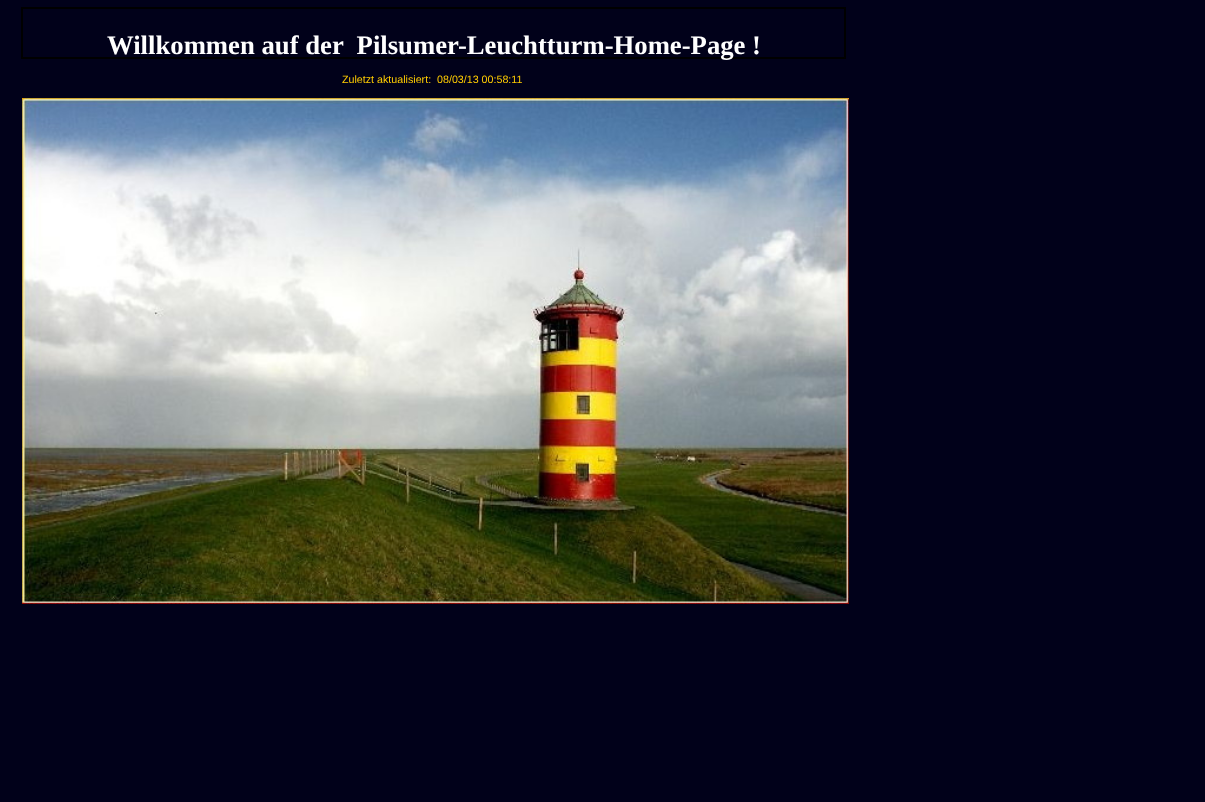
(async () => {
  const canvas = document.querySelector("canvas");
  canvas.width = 1205;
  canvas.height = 802;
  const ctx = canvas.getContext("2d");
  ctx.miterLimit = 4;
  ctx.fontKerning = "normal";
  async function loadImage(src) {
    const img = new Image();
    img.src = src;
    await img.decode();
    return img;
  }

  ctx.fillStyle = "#01011a";
  ctx.fillRect(0, 0, 1205, 802);
  ctx.strokeStyle = "#000000";
  ctx.lineWidth = 2;
  ctx.strokeRect(22, 8, 823, 50);
  ctx.drawImage(await loadImage("img/1.png"), 22, 98, 827, 506);
  ctx.font = "bold 26.7px Liberation Serif";
  ctx.fillStyle = "#ffffff";
  ctx.fillText("Willkommen auf der  Pilsumer-Leuchtturm-Home-Page !", 107, 54);
  ctx.font = "10.7px Liberation Sans";
  ctx.fillStyle = "#ffcc00";
  ctx.fillText("Zuletzt aktualisiert:  08/03/13 00:58:11", 342, 83);
})();
